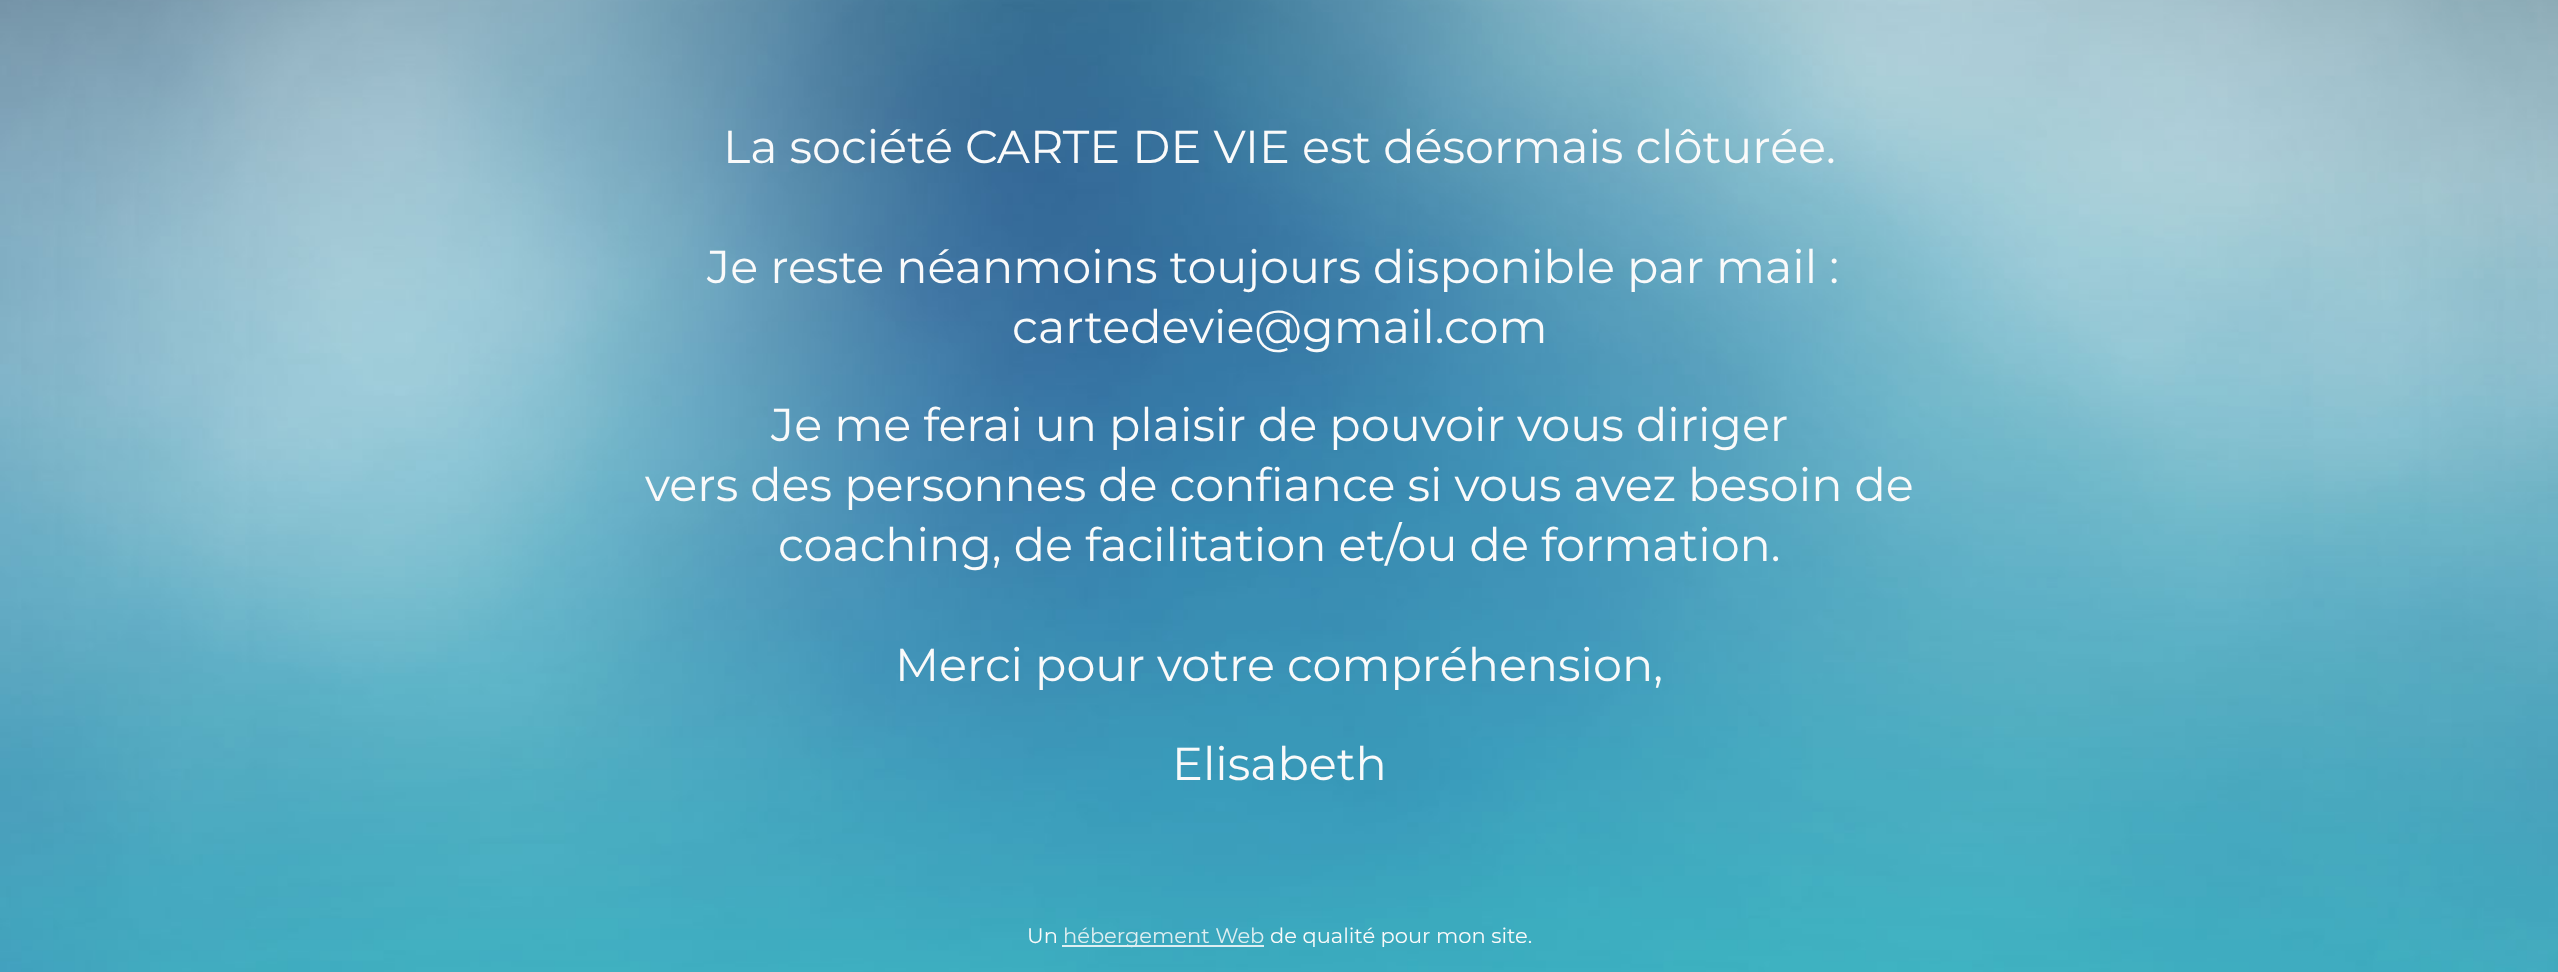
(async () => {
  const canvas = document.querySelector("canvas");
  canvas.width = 2558;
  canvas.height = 972;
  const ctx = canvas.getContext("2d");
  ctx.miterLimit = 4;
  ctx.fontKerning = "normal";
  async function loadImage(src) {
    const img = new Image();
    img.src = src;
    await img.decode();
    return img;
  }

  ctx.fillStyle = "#ffffff";
  ctx.fillRect(0, 0, 2558, 972);
  ctx.drawImage(await loadImage("img/1.png"), 0, 0, 2558, 972);
  ctx.fillStyle = "rgba(250, 250, 250, 0.85)";
  ctx.fillRect(1062, 945, 202, 2);
  ctx.font = "100 46.2px Montserrat";
  ctx.fillStyle = "#fafafa";
  for (const [text, x, y] of [
    ["La société CARTE DE VIE est désormais clôturée.", 723, 163],
    ["Je reste néanmoins toujours disponible par mail :", 707, 283],
    ["cartedevie@gmail.com", 1012, 343],
    ["Je me ferai un plaisir de pouvoir vous diriger", 771, 441],
    ["vers des personnes de confiance si vous avez besoin de", 645, 501],
    ["coaching, de facilitation et/ou de formation.", 778, 561],
    ["Merci pour votre compréhension,", 895, 681],
    ["Elisabeth", 1172, 780],
  ]) {
    ctx.fillText(text, x, y);
  }
  ctx.font = "100 21px Montserrat";
  ctx.fillText("Un", 1027, 943);
  ctx.fillStyle = "#deeef1";
  ctx.fillText("hébergement Web", 1063, 943);
  ctx.fillStyle = "#fafafa";
  ctx.fillText("de qualité pour mon site.", 1270, 943);
})();
